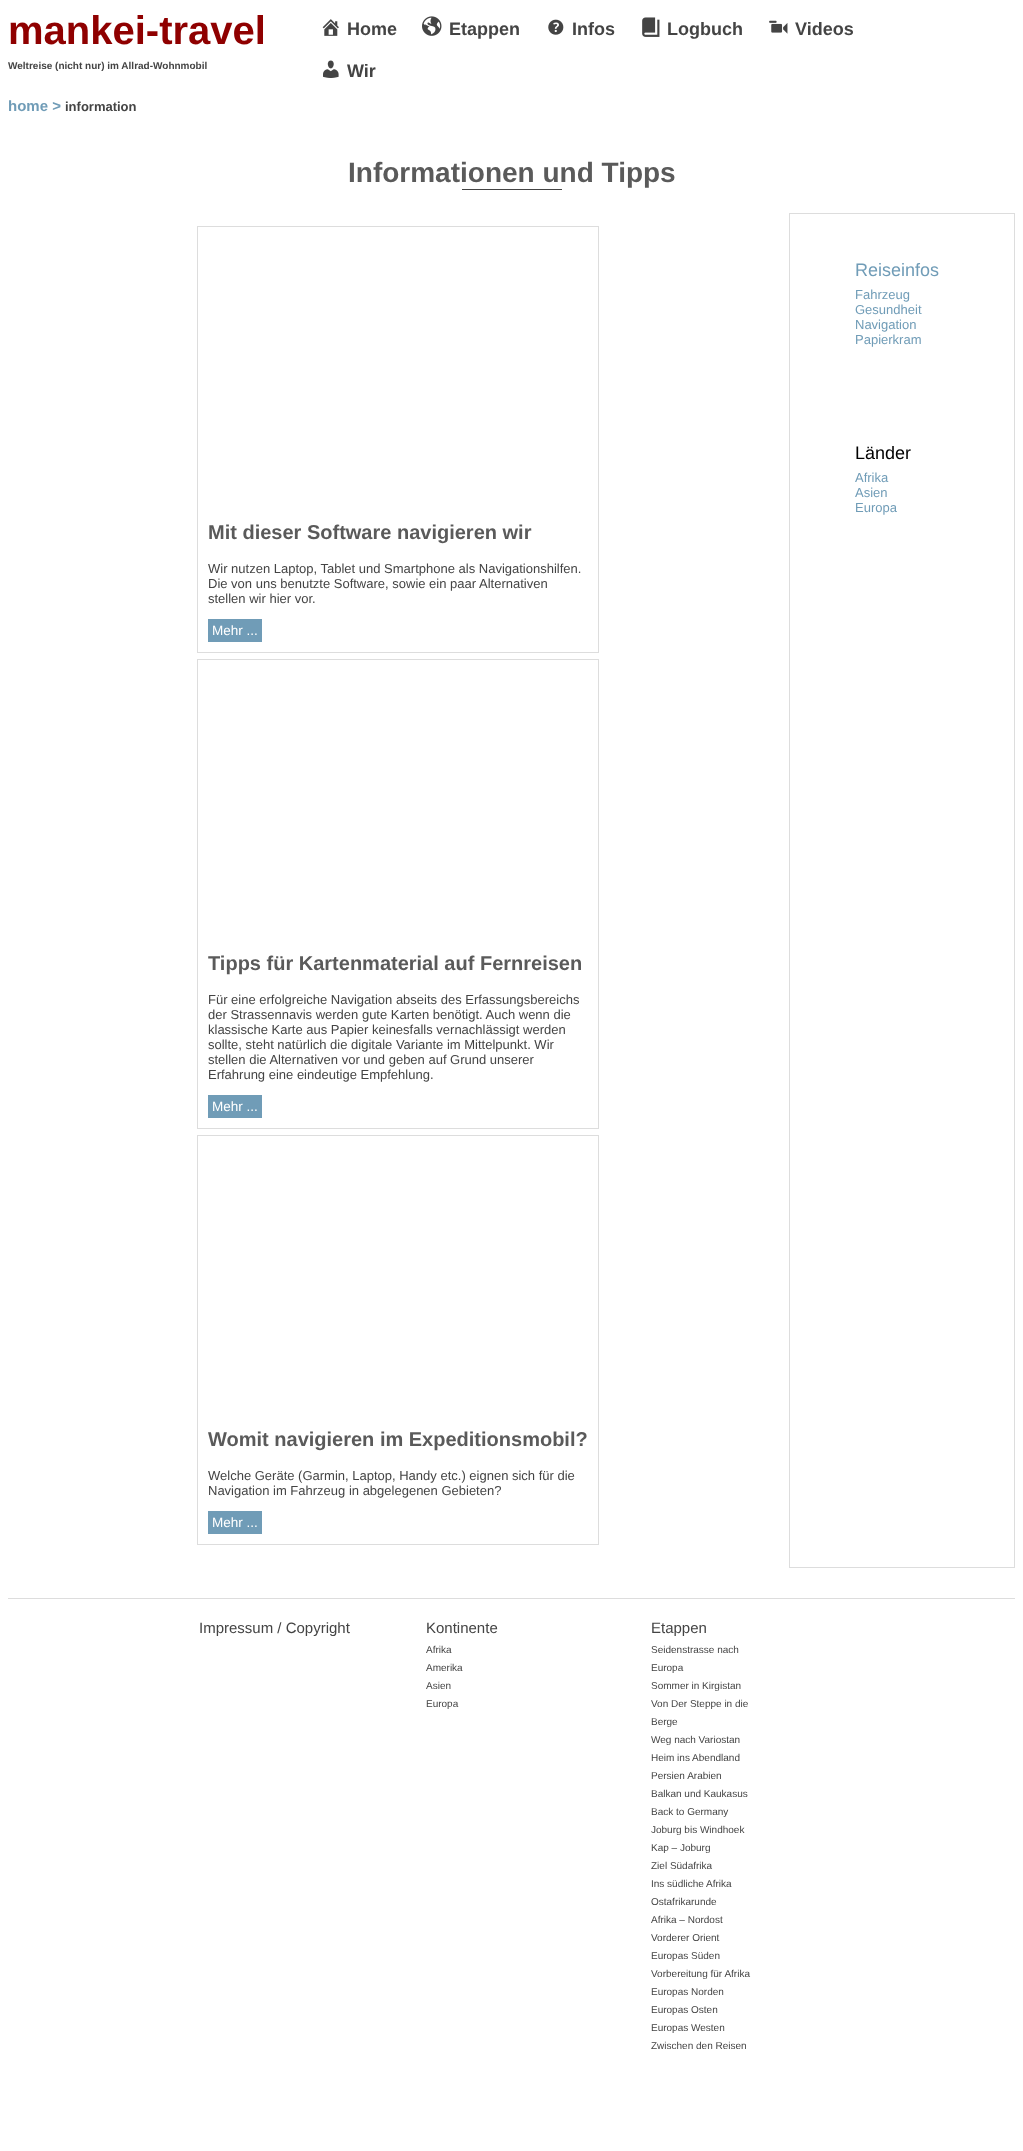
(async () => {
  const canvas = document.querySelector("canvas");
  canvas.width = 1023;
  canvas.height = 2151;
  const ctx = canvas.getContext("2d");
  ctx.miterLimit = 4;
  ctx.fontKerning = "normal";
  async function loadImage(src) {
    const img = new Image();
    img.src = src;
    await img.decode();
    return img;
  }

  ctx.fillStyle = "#ffffff";
  ctx.fillRect(0, 0, 1023, 2151);
  ctx.drawImage(await loadImage("img/1.png"), 322, 19, 17, 17);
  ctx.drawImage(await loadImage("img/2.png"), 422, 16, 20, 20);
  ctx.drawImage(await loadImage("img/3.png"), 548, 19, 16, 16);
  ctx.drawImage(await loadImage("img/4.png"), 642, 17, 18, 20);
  ctx.drawImage(await loadImage("img/5.png"), 769, 20, 19, 14);
  ctx.drawImage(await loadImage("img/6.png"), 323, 60, 16, 18);
  ctx.fillStyle = "#444444";
  ctx.fillRect(462, 189, 100, 1);
  ctx.strokeStyle = "#dddddd";
  ctx.strokeRect(789.5, 213.5, 225, 1354);
  ctx.strokeRect(197.5, 226.5, 401, 426);
  ctx.fillStyle = "#709cb7";
  ctx.fillRect(208, 619, 54, 23);
  ctx.strokeRect(197.5, 659.5, 401, 469);
  ctx.fillRect(208, 1095, 54, 23);
  ctx.strokeRect(197.5, 1135.5, 401, 409);
  ctx.fillRect(208, 1511, 54, 23);
  ctx.fillStyle = "#dddddd";
  ctx.fillRect(8, 1598, 1007, 1);
  ctx.font = "bold 40px Liberation Sans";
  ctx.fillStyle = "#8f0000";
  ctx.fillText("mankei-travel", 8, 44);
  ctx.font = "bold 10px Liberation Sans";
  ctx.fillStyle = "#444444";
  ctx.fillText("Weltreise (nicht nur) im Allrad-Wohnmobil", 8, 69);
  ctx.font = "bold 18px Liberation Sans";
  for (const [text, x, y] of [
    ["Home", 347, 35],
    ["Etappen", 449, 35],
    ["Infos", 572, 35],
    ["Logbuch", 667, 35],
    ["Videos", 795, 35],
    ["Wir", 347, 77],
  ]) {
    ctx.fillText(text, x, y);
  }
  ctx.font = "bold 15px Liberation Sans";
  ctx.fillStyle = "#709cb7";
  ctx.fillText("home >", 8, 111);
  ctx.font = "bold 13px Liberation Sans";
  ctx.fillStyle = "#444444";
  ctx.fillText("information", 65, 111);
  ctx.font = "bold 28px Liberation Sans";
  ctx.fillStyle = "#5a5a5a";
  ctx.fillText("Informationen und Tipps", 348, 182);
  ctx.font = "18px Liberation Sans";
  ctx.fillStyle = "#709cb7";
  ctx.fillText("Reiseinfos", 855, 276);
  ctx.font = "13px Liberation Sans";
  for (const [text, x, y] of [
    ["Fahrzeug", 855, 299],
    ["Gesundheit", 855, 314],
    ["Navigation", 855, 329],
    ["Papierkram", 855, 344],
  ]) {
    ctx.fillText(text, x, y);
  }
  ctx.font = "18px Liberation Sans";
  ctx.fillStyle = "#000000";
  ctx.fillText("Länder", 855, 459);
  ctx.font = "13px Liberation Sans";
  ctx.fillStyle = "#709cb7";
  for (const [text, x, y] of [
    ["Afrika", 855, 482],
    ["Asien", 855, 497],
    ["Europa", 855, 512],
  ]) {
    ctx.fillText(text, x, y);
  }
  ctx.font = "bold 20px Liberation Sans";
  ctx.fillStyle = "#5a5a5a";
  ctx.fillText("Mit dieser Software navigieren wir", 208, 539);
  ctx.font = "13px Liberation Sans";
  ctx.fillStyle = "#444444";
  for (const [text, x, y] of [
    ["Wir nutzen Laptop, Tablet und Smartphone als Navigationshilfen.", 208, 573],
    ["Die von uns benutzte Software, sowie ein paar Alternativen", 208, 588],
    ["stellen wir hier vor.", 208, 603],
  ]) {
    ctx.fillText(text, x, y);
  }
  ctx.font = "13.5px Liberation Sans";
  ctx.fillStyle = "#ffffff";
  ctx.fillText("Mehr ...", 212, 635);
  ctx.font = "bold 20px Liberation Sans";
  ctx.fillStyle = "#5a5a5a";
  ctx.fillText("Tipps für Kartenmaterial auf Fernreisen", 208, 970);
  ctx.font = "13px Liberation Sans";
  ctx.fillStyle = "#444444";
  for (const [text, x, y] of [
    ["Für eine erfolgreiche Navigation abseits des Erfassungsbereichs", 208, 1004],
    ["der Strassennavis werden gute Karten benötigt. Auch wenn die", 208, 1019],
    ["klassische Karte aus Papier keinesfalls vernachlässigt werden", 208, 1034],
    ["sollte, steht natürlich die digitale Variante im Mittelpunkt. Wir", 208, 1049],
    ["stellen die Alternativen vor und geben auf Grund unserer", 208, 1064],
    ["Erfahrung eine eindeutige Empfehlung.", 208, 1079],
  ]) {
    ctx.fillText(text, x, y);
  }
  ctx.font = "13.5px Liberation Sans";
  ctx.fillStyle = "#ffffff";
  ctx.fillText("Mehr ...", 212, 1111);
  ctx.font = "bold 20px Liberation Sans";
  ctx.fillStyle = "#5a5a5a";
  ctx.fillText("Womit navigieren im Expeditionsmobil?", 208, 1446);
  ctx.font = "13px Liberation Sans";
  ctx.fillStyle = "#444444";
  ctx.fillText("Welche Geräte (Garmin, Laptop, Handy etc.) eignen sich für die", 208, 1480);
  ctx.fillText("Navigation im Fahrzeug in abgelegenen Gebieten?", 208, 1495);
  ctx.font = "13.5px Liberation Sans";
  ctx.fillStyle = "#ffffff";
  ctx.fillText("Mehr ...", 212, 1527);
  ctx.font = "15px Liberation Sans";
  ctx.fillStyle = "#444444";
  ctx.fillText("Impressum / Copyright", 199, 1633);
  ctx.fillText("Kontinente", 426, 1633);
  ctx.font = "10px Liberation Sans";
  for (const [text, x, y] of [
    ["Afrika", 426, 1653],
    ["Amerika", 426, 1671],
    ["Asien", 426, 1689],
    ["Europa", 426, 1707],
  ]) {
    ctx.fillText(text, x, y);
  }
  ctx.font = "15px Liberation Sans";
  ctx.fillText("Etappen", 651, 1633);
  ctx.font = "10px Liberation Sans";
  for (const [text, x, y] of [
    ["Seidenstrasse nach", 651, 1653],
    ["Europa", 651, 1671],
    ["Sommer in Kirgistan", 651, 1689],
    ["Von Der Steppe in die", 651, 1707],
    ["Berge", 651, 1725],
    ["Weg nach Variostan", 651, 1743],
    ["Heim ins Abendland", 651, 1761],
    ["Persien Arabien", 651, 1779],
    ["Balkan und Kaukasus", 651, 1797],
    ["Back to Germany", 651, 1815],
    ["Joburg bis Windhoek", 651, 1833],
    ["Kap – Joburg", 651, 1851],
    ["Ziel Südafrika", 651, 1869],
    ["Ins südliche Afrika", 651, 1887],
    ["Ostafrikarunde", 651, 1905],
    ["Afrika – Nordost", 651, 1923],
    ["Vorderer Orient", 651, 1941],
    ["Europas Süden", 651, 1959],
    ["Vorbereitung für Afrika", 651, 1977],
    ["Europas Norden", 651, 1995],
    ["Europas Osten", 651, 2013],
    ["Europas Westen", 651, 2031],
    ["Zwischen den Reisen", 651, 2049],
  ]) {
    ctx.fillText(text, x, y);
  }
})();
